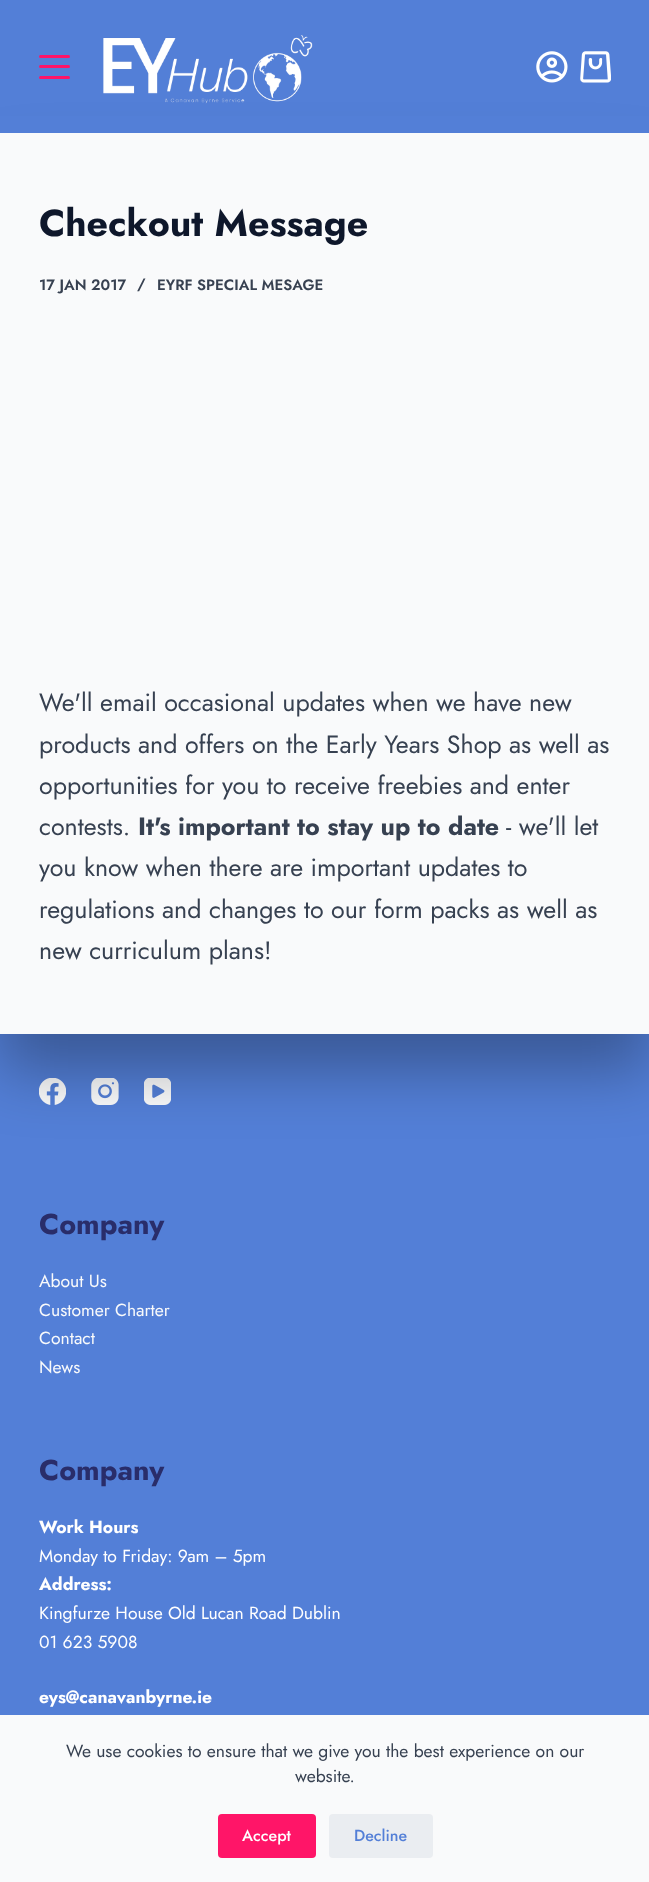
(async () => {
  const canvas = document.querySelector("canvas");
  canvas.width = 649;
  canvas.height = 1882;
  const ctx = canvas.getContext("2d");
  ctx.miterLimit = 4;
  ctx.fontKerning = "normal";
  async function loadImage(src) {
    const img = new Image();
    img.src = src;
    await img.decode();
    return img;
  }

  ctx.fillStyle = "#537fd7";
  ctx.fillRect(0, 0, 649, 1882);
  ctx.drawImage(await loadImage("img/4.png"), 39, 1078, 27, 27);
  ctx.drawImage(await loadImage("img/5.png"), 91, 1078, 28, 27);
  ctx.drawImage(await loadImage("img/6.png"), 144, 1078, 27, 27);
  ctx.fillStyle = "rgba(0, 0, 0, 0.3)";
  ctx.filter = "blur(31px)";
  ctx.beginPath();
  ctx.rect(0, 170, 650, 901);
  ctx.fill();
  ctx.filter = "none";
  ctx.fillStyle = "#537fd7";
  ctx.fillRect(0, 116, 649, 17);
  ctx.fillStyle = "#ff1568";
  ctx.beginPath();
  ctx.roundRect(39, 55, 31, 3, 1.5);
  ctx.fill();
  ctx.beginPath();
  ctx.roundRect(39, 65, 31, 3, 1.5);
  ctx.fill();
  ctx.beginPath();
  ctx.roundRect(39, 76, 31, 3, 1.5);
  ctx.fill();
  ctx.drawImage(await loadImage("img/1.png"), 103, 35, 210, 69);
  ctx.drawImage(await loadImage("img/2.png"), 536, 51, 32, 32);
  ctx.drawImage(await loadImage("img/3.png"), 580, 51, 31, 32);
  ctx.fillStyle = "#f9fafb";
  ctx.fillRect(0, 133, 649, 901);
  ctx.fillRect(0, 1715, 649, 167);
  ctx.fillStyle = "#ff1568";
  ctx.beginPath();
  ctx.roundRect(218, 1814, 98, 44, 4);
  ctx.fill();
  ctx.fillStyle = "#eaedf1";
  ctx.beginPath();
  ctx.roundRect(329, 1814, 104, 44, 4);
  ctx.fill();
  ctx.font = "bold 37.5px Jost";
  ctx.fillStyle = "#0e172b";
  ctx.fillText("Checkout Message", 39, 236);
  ctx.font = "600 15px Jost";
  ctx.fillStyle = "#374151";
  for (const [text, x, y] of [
    ["17 JAN 2017", 39, 290],
    ["/", 137, 289],
    ["EYRF SPECIAL MESAGE", 157, 290],
  ]) {
    ctx.fillText(text, x, y);
  }
  ctx.font = "25px Jost";
  for (const [text, x, y] of [
    ["We'll email occasional updates when we have new", 39, 711],
    ["products and offers on the Early Years Shop as well as", 39, 753],
    ["opportunities for you to receive freebies and enter", 39, 794],
    ["contests.", 39, 835],
  ]) {
    ctx.fillText(text, x, y);
  }
  ctx.font = "bold 25px Jost";
  ctx.fillText("It's important to stay up to date", 138, 835);
  ctx.font = "25px Jost";
  for (const [text, x, y] of [
    ["- we'll let", 506, 835],
    ["you know when there are important updates to", 39, 876],
    ["regulations and changes to our form packs as well as", 39, 918],
    ["new curriculum plans!", 39, 959],
  ]) {
    ctx.fillText(text, x, y);
  }
  ctx.font = "bold 28.75px Jost";
  ctx.fillStyle = "#292d6a";
  ctx.fillText("Company", 39, 1234);
  ctx.font = "17.5px Jost";
  ctx.fillStyle = "#f9fafb";
  for (const [text, x, y] of [
    ["About Us", 39, 1287],
    ["Customer Charter", 39, 1316],
    ["Contact", 39, 1344],
    ["News", 39, 1373],
  ]) {
    ctx.fillText(text, x, y);
  }
  ctx.font = "bold 28.75px Jost";
  ctx.fillStyle = "#292d6a";
  ctx.fillText("Company", 39, 1480);
  ctx.font = "bold 17.5px Jost";
  ctx.fillStyle = "#ffffff";
  ctx.fillText("Work Hours", 39, 1533);
  ctx.font = "17.5px Jost";
  ctx.fillText("Monday to Friday: 9am – 5pm", 39, 1562);
  ctx.font = "bold 17.5px Jost";
  ctx.fillText("Address:", 39, 1590);
  ctx.font = "17.5px Jost";
  ctx.fillText("Kingfurze House Old Lucan Road Dublin", 39, 1619);
  ctx.fillText("01 623 5908", 39, 1648);
  ctx.font = "bold 17.5px Jost";
  ctx.fillText("eys@canavanbyrne.ie", 39, 1703);
  ctx.font = "17.5px Jost";
  ctx.fillStyle = "#374151";
  ctx.fillText("We use cookies to ensure that we give you the best experience on our", 66, 1757);
  ctx.fillText("website.", 295, 1782);
  ctx.font = "500 16px Jost";
  ctx.fillStyle = "#ffffff";
  ctx.fillText("Accept", 242, 1841);
  ctx.fillStyle = "#537fd7";
  ctx.fillText("Decline", 354, 1841);
})();
